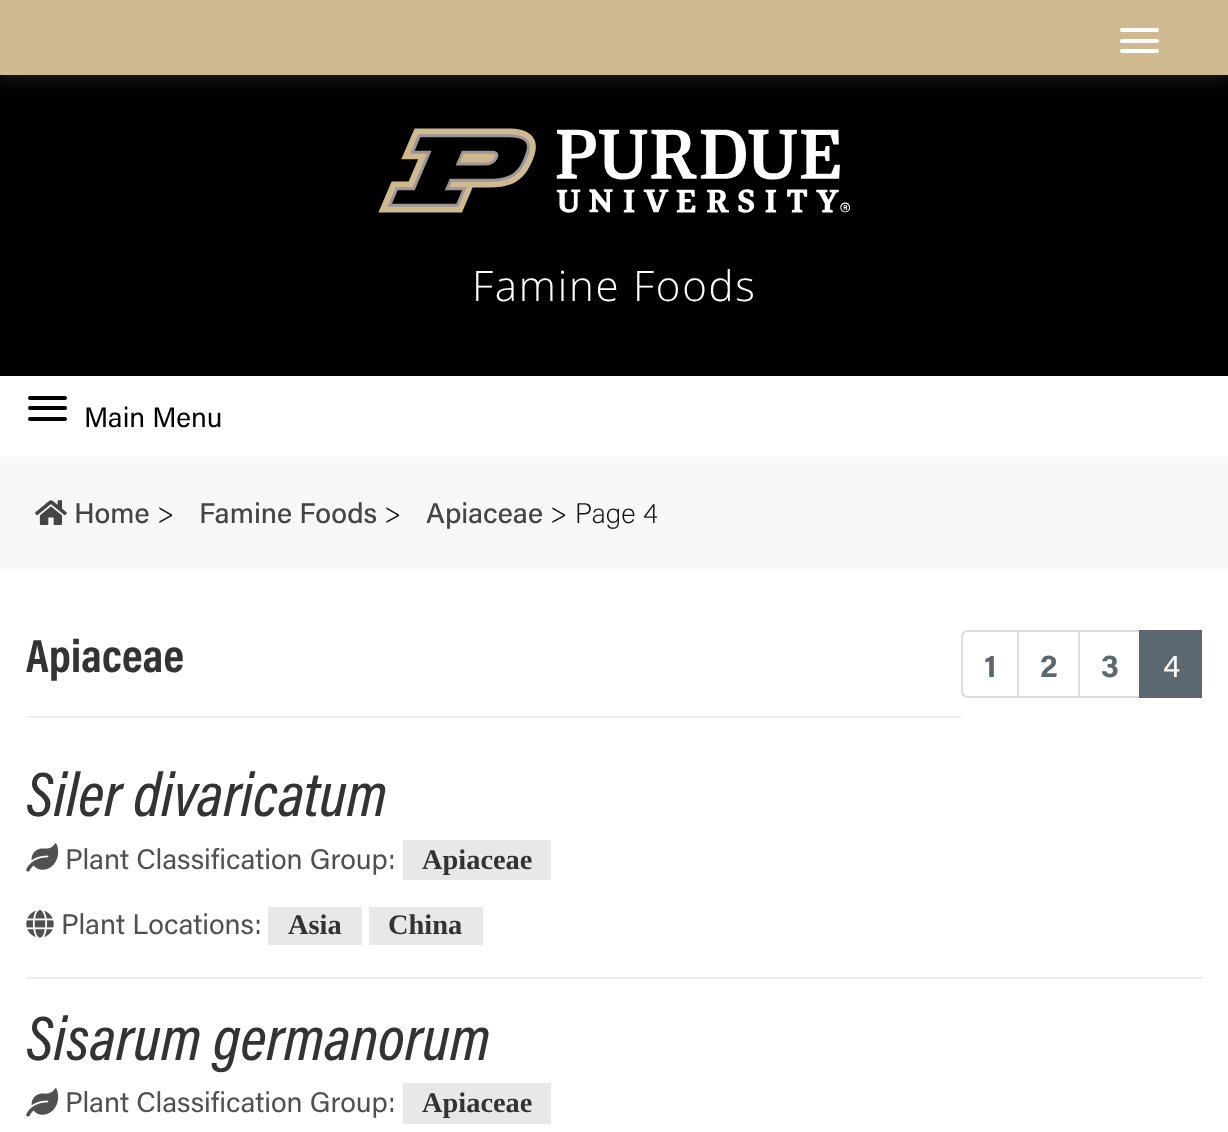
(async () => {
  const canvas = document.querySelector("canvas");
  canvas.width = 1228;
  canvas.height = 1132;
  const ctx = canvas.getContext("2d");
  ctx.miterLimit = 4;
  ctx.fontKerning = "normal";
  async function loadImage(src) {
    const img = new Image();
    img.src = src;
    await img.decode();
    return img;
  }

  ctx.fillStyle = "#ffffff";
  ctx.fillRect(0, 0, 1228, 1132);
  ctx.fillStyle = "#000000";
  ctx.fillRect(0, 75, 1228, 301);
  ctx.fillStyle = "#1e1e1e";
  ctx.filter = "blur(9px)";
  ctx.beginPath();
  ctx.rect(0, 4, 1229, 75);
  ctx.fill();
  ctx.filter = "none";
  ctx.fillStyle = "#cfb991";
  ctx.fillRect(0, 0, 1228, 75);
  ctx.fillStyle = "#ffffff";
  ctx.beginPath();
  ctx.roundRect(1120, 28, 39, 4, 2);
  ctx.fill();
  ctx.beginPath();
  ctx.roundRect(1120, 39, 39, 4, 2);
  ctx.fill();
  ctx.beginPath();
  ctx.roundRect(1120, 49, 39, 4, 2);
  ctx.fill();
  ctx.drawImage(await loadImage("img/1.png"), 378, 128, 472, 85);
  ctx.fillStyle = "#000000";
  ctx.beginPath();
  ctx.roundRect(28, 396, 39, 4, 2);
  ctx.fill();
  ctx.beginPath();
  ctx.roundRect(28, 406, 39, 4, 2);
  ctx.fill();
  ctx.beginPath();
  ctx.roundRect(28, 417, 39, 4, 2);
  ctx.fill();
  ctx.fillStyle = "#f8f8f8";
  ctx.fillRect(0, 457, 1228, 112);
  ctx.drawImage(await loadImage("img/2.png"), 35, 500, 32, 25);
  ctx.beginPath();
  ctx.roundRect(962, 631, 56, 66, [6, 0, 0, 6]);
  ctx.strokeStyle = "#dddddd";
  ctx.lineWidth = 2;
  ctx.stroke();
  ctx.strokeRect(1018, 631, 61, 66);
  ctx.strokeRect(1079, 631, 61, 66);
  ctx.fillStyle = "#5b6870";
  ctx.fillRect(1139, 630, 63, 68);
  ctx.fillStyle = "#eeeeee";
  ctx.fillRect(26, 716, 935, 2);
  ctx.drawImage(await loadImage("img/3.png"), 26, 843, 33, 29);
  ctx.fillStyle = "#e8e8e8";
  ctx.fillRect(403, 840, 148, 40);
  ctx.drawImage(await loadImage("img/4.png"), 26, 910, 28, 28);
  for (const [x, y, w, h, color] of [
    [268, 907, 94, 38, "#e8e8e8"],
    [369, 907, 114, 38, "#e8e8e8"],
    [26, 977, 1176, 2, "#eeeeee"],
  ]) {
    ctx.fillStyle = color;
    ctx.fillRect(x, y, w, h);
  }
  ctx.drawImage(await loadImage("img/3.png"), 26, 1088, 33, 29);
  ctx.fillStyle = "#e8e8e8";
  ctx.fillRect(403, 1083, 148, 41);
  ctx.letterSpacing = "1.75px";
  ctx.font = "300 42px Open Sans";
  ctx.fillStyle = "#ffffff";
  ctx.fillText("Famine Foods", 472, 301);
  ctx.letterSpacing = "0px";
  ctx.font = "28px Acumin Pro";
  ctx.fillStyle = "#000000";
  ctx.fillText("Main Menu", 84, 427);
  ctx.font = "500 28.4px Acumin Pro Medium";
  ctx.fillStyle = "#444444";
  ctx.fillText("Home", 74, 523);
  ctx.font = "200 28.4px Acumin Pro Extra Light";
  ctx.fillStyle = "#131212";
  ctx.fillText(">", 157, 523);
  ctx.font = "500 28.4px Acumin Pro Medium";
  ctx.fillStyle = "#444444";
  ctx.fillText("Famine Foods", 199, 523);
  ctx.font = "200 28.4px Acumin Pro Extra Light";
  ctx.fillStyle = "#131212";
  ctx.fillText(">", 384, 523);
  ctx.font = "500 28.4px Acumin Pro Medium";
  ctx.fillStyle = "#444444";
  ctx.fillText("Apiaceae", 426, 523);
  ctx.font = "200 28.4px Acumin Pro Extra Light";
  ctx.fillStyle = "#131212";
  ctx.fillText("> Page 4", 550, 523);
  ctx.font = "bold 47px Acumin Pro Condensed";
  ctx.fillStyle = "#333333";
  ctx.fillText("Apiaceae", 26, 672);
  ctx.font = "bold 32px Acumin Pro";
  ctx.fillStyle = "#5b6870";
  for (const [text, x, y] of [
    ["1", 984, 677],
    ["2", 1040, 677],
    ["3", 1101, 677],
  ]) {
    ctx.fillText(text, x, y);
  }
  ctx.font = "32px Acumin Pro";
  ctx.fillStyle = "#ffffff";
  ctx.fillText("4", 1163, 677);
  ctx.font = "italic 500 63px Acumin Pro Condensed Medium";
  ctx.fillStyle = "#333333";
  ctx.fillText("Siler divaricatum", 26, 816);
  ctx.font = "28.4px Acumin Pro";
  ctx.fillStyle = "#505050";
  ctx.fillText("Plant Classification Group:", 65, 869);
  ctx.font = "bold 28.4px Liberation Serif";
  ctx.fillStyle = "#333333";
  ctx.fillText("Apiaceae", 422, 869);
  ctx.font = "28.4px Acumin Pro";
  ctx.fillStyle = "#505050";
  ctx.fillText("Plant Locations:", 61, 934);
  ctx.font = "bold 28.4px Liberation Serif";
  ctx.fillStyle = "#333333";
  ctx.fillText("Asia", 288, 934);
  ctx.fillText("China", 388, 934);
  ctx.font = "italic 500 63px Acumin Pro Condensed Medium";
  ctx.fillText("Sisarum germanorum", 26, 1060);
  ctx.font = "28.4px Acumin Pro";
  ctx.fillStyle = "#505050";
  ctx.fillText("Plant Classification Group:", 65, 1112);
  ctx.font = "bold 28.4px Liberation Serif";
  ctx.fillStyle = "#333333";
  ctx.fillText("Apiaceae", 422, 1112);
})();
